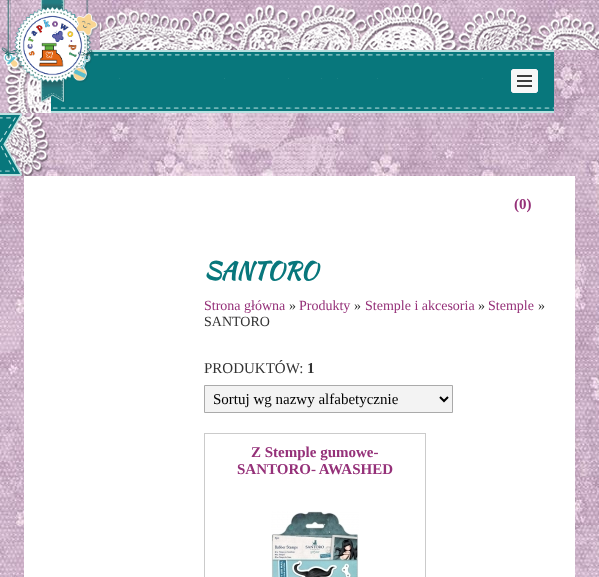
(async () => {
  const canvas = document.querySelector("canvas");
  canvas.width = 599;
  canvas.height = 577;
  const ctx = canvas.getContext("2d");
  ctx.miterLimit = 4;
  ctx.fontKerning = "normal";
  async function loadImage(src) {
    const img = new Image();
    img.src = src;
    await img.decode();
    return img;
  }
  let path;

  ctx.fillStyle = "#ffffff";
  ctx.fillRect(0, 0, 599, 577);
  ctx.drawImage(await loadImage("img/1.png"), 0, 0, 599, 577);
  ctx.drawImage(await loadImage("img/4.png"), 5, 54, 46, 59);
  ctx.drawImage(await loadImage("img/5.png"), 51, 50, 503, 63);
  ctx.drawImage(await loadImage("img/2.png"), 1, 0, 98, 103);
  ctx.drawImage(await loadImage("img/3.png"), 100, 3, 499, 47);
  ctx.drawImage(await loadImage("img/6.png"), 511, 69, 27, 24);
  ctx.drawImage(await loadImage("img/7.png"), 0, 113, 50, 63);
  ctx.fillRect(24, 176, 551, 401);
  ctx.fillStyle = "#f3f3f3";
  ctx.beginPath();
  ctx.rect(204.5, 385.5, 248, 27);
  ctx.fill();
  ctx.strokeStyle = "#aaaaaa";
  ctx.stroke();
  path = new Path2D("M440 397L444 401L448 397");
  ctx.strokeStyle = "#000000";
  ctx.lineWidth = 2;
  ctx.stroke(path);
  ctx.strokeStyle = "#cbcbcb";
  ctx.lineWidth = 1;
  ctx.strokeRect(204.5, 433.5, 221, 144);
  ctx.drawImage(await loadImage("img/8.png"), 271, 511, 88, 66);
  ctx.font = "bold 15px Liberation Serif";
  ctx.fillStyle = "#953179";
  ctx.fillText("(0)", 514, 209);
  ctx.font = "bold 24px Kaushan Script";
  ctx.fillStyle = "#08777c";
  ctx.fillText("SANTORO", 204, 279);
  ctx.font = "14px Liberation Serif";
  ctx.fillStyle = "#953179";
  ctx.fillText("Strona główna", 204, 310);
  ctx.fillStyle = "#333333";
  ctx.fillText("»", 289, 310);
  ctx.fillStyle = "#953179";
  ctx.fillText("Produkty", 299, 310);
  ctx.fillStyle = "#333333";
  ctx.fillText("»", 354, 310);
  ctx.fillStyle = "#953179";
  ctx.fillText("Stemple i akcesoria", 365, 310);
  ctx.fillStyle = "#333333";
  ctx.fillText("»", 478, 310);
  ctx.fillStyle = "#953179";
  ctx.fillText("Stemple", 488, 310);
  ctx.fillStyle = "#333333";
  ctx.fillText("»", 538, 310);
  ctx.fillText("SANTORO", 204, 326);
  ctx.font = "15px Liberation Serif";
  ctx.fillText("PRODUKTÓW:", 204, 373);
  ctx.font = "bold 15px Liberation Serif";
  ctx.fillText("1", 307, 373);
  ctx.font = "15px Liberation Serif";
  ctx.fillStyle = "#000000";
  ctx.fillText("Sortuj wg nazwy alfabetycznie", 213, 404);
  ctx.font = "bold 15px Liberation Serif";
  ctx.fillStyle = "#953179";
  ctx.fillText("Z Stemple gumowe-", 251, 457);
  ctx.fillText("SANTORO- AWASHED", 237, 474);
})();
